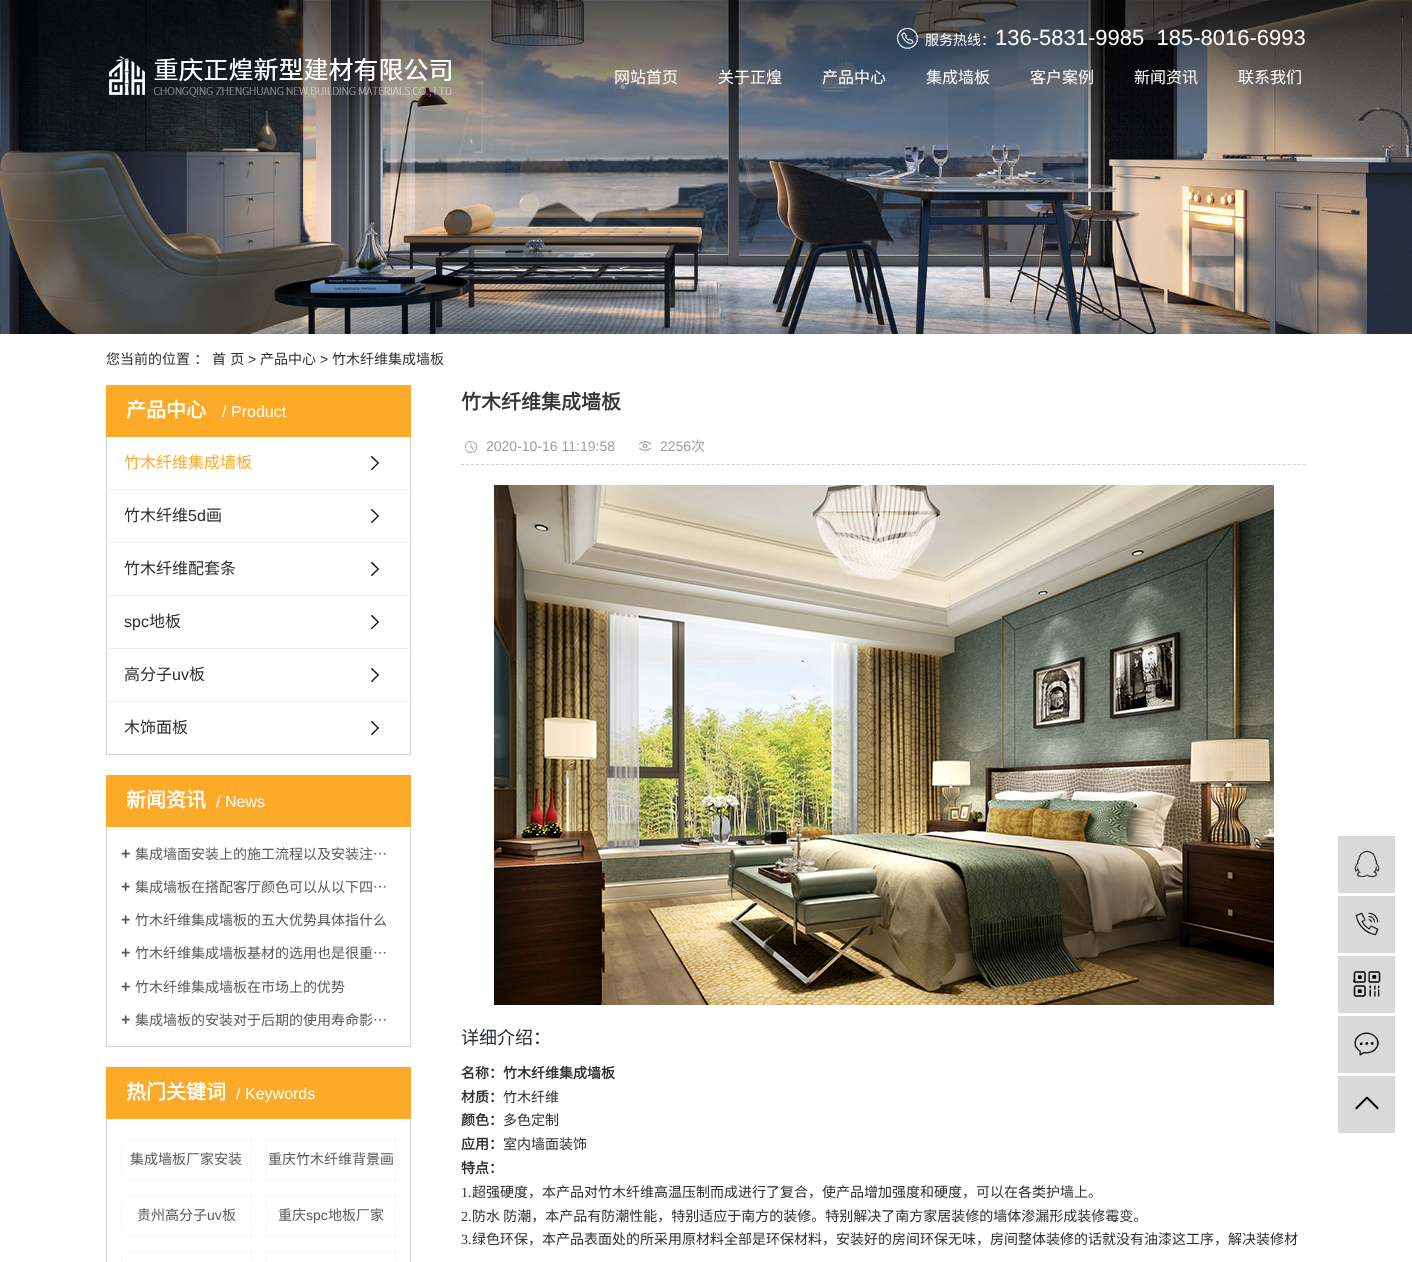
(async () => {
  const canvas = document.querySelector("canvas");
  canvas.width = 1412;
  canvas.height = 1262;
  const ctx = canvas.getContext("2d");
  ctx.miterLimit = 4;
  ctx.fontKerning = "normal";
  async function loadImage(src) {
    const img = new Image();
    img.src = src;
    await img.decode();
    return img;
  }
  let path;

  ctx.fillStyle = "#ffffff";
  ctx.fillRect(0, 0, 1412, 1262);
  ctx.drawImage(await loadImage("img/1.png"), 0, 0, 1412, 334);
  ctx.drawImage(await loadImage("img/2.png"), 109, 56, 343, 41);
  ctx.drawImage(await loadImage("img/3.png"), 897, 28, 21, 21);
  for (const [x, y, w, h, color] of [
    [106, 385, 305, 52, "#fdaa28"],
    [410, 437, 1, 318, "#d2d2d2"],
    [106, 754, 305, 1, "#d2d2d2"],
    [106, 437, 1, 318, "#d2d2d2"],
    [106, 489, 305, 1, "#eeeeee"],
  ]) {
    ctx.fillStyle = color;
    ctx.fillRect(x, y, w, h);
  }
  ctx.drawImage(await loadImage("img/4.png"), 371, 456, 8, 14);
  ctx.fillRect(106, 542, 305, 1);
  ctx.drawImage(await loadImage("img/4.png"), 371, 509, 8, 14);
  ctx.fillRect(106, 595, 305, 1);
  ctx.drawImage(await loadImage("img/4.png"), 371, 562, 8, 14);
  ctx.fillRect(106, 648, 305, 1);
  ctx.drawImage(await loadImage("img/4.png"), 371, 615, 8, 14);
  ctx.fillRect(106, 701, 305, 1);
  ctx.drawImage(await loadImage("img/4.png"), 371, 668, 8, 14);
  ctx.drawImage(await loadImage("img/4.png"), 371, 721, 8, 14);
  for (const [x, y, w, h, color] of [
    [106, 775, 305, 52, "#fdaa28"],
    [410, 827, 1, 220, "#d2d2d2"],
    [106, 1046, 305, 1, "#d2d2d2"],
    [106, 827, 1, 220, "#d2d2d2"],
    [106, 1067, 305, 52, "#fdaa28"],
    [410, 1119, 1, 143, "#d2d2d2"],
    [106, 1119, 1, 143, "#d2d2d2"],
  ]) {
    ctx.fillStyle = color;
    ctx.fillRect(x, y, w, h);
  }
  path = new Path2D("M121 1139.5H252");
  ctx.strokeStyle = "#f1f1f1";
  ctx.setLineDash([3, 1.92]);
  ctx.stroke(path);
  path = new Path2D("M251.5 1139V1181");
  ctx.setLineDash([3, 1.88]);
  ctx.stroke(path);
  path = new Path2D("M121 1180.5H252");
  ctx.setLineDash([3, 1.92]);
  ctx.stroke(path);
  path = new Path2D("M121.5 1139V1181");
  ctx.setLineDash([3, 1.88]);
  ctx.stroke(path);
  path = new Path2D("M266 1139.5H396");
  ctx.setLineDash([3, 2.08]);
  ctx.stroke(path);
  path = new Path2D("M395.5 1139V1181");
  ctx.setLineDash([3, 1.88]);
  ctx.stroke(path);
  path = new Path2D("M266 1180.5H396");
  ctx.setLineDash([3, 2.08]);
  ctx.stroke(path);
  path = new Path2D("M266.5 1139V1181");
  ctx.setLineDash([3, 1.88]);
  ctx.stroke(path);
  path = new Path2D("M121 1195.5H252");
  ctx.setLineDash([3, 1.92]);
  ctx.stroke(path);
  path = new Path2D("M251.5 1195V1237");
  ctx.setLineDash([3, 1.88]);
  ctx.stroke(path);
  path = new Path2D("M121 1236.5H252");
  ctx.setLineDash([3, 1.92]);
  ctx.stroke(path);
  path = new Path2D("M121.5 1195V1237");
  ctx.setLineDash([3, 1.88]);
  ctx.stroke(path);
  path = new Path2D("M266 1195.5H396");
  ctx.setLineDash([3, 2.08]);
  ctx.stroke(path);
  path = new Path2D("M395.5 1195V1237");
  ctx.setLineDash([3, 1.88]);
  ctx.stroke(path);
  path = new Path2D("M266 1236.5H396");
  ctx.setLineDash([3, 2.08]);
  ctx.stroke(path);
  path = new Path2D("M266.5 1195V1237");
  ctx.setLineDash([3, 1.88]);
  ctx.stroke(path);
  path = new Path2D("M121 1251.5H252");
  ctx.setLineDash([3, 1.92]);
  ctx.stroke(path);
  path = new Path2D("M251.5 1251V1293");
  ctx.setLineDash([3, 1.88]);
  ctx.stroke(path);
  path = new Path2D("M121.5 1251V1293");
  ctx.stroke(path);
  path = new Path2D("M266 1251.5H396");
  ctx.setLineDash([3, 2.08]);
  ctx.stroke(path);
  path = new Path2D("M395.5 1251V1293");
  ctx.setLineDash([3, 1.88]);
  ctx.stroke(path);
  path = new Path2D("M266.5 1251V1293");
  ctx.stroke(path);
  path = new Path2D("M461 464.5H1306");
  ctx.strokeStyle = "#cfcfcf";
  ctx.setLineDash([3, 2.01]);
  ctx.stroke(path);
  ctx.drawImage(await loadImage("img/5.png"), 465, 441, 12, 12);
  ctx.drawImage(await loadImage("img/6.png"), 639, 441, 12, 10);
  ctx.drawImage(await loadImage("img/7.png"), 494, 485, 780, 520);
  ctx.fillStyle = "#d9d9d9";
  ctx.fillRect(1338, 836, 57, 57);
  ctx.drawImage(await loadImage("img/8.png"), 1354, 850, 26, 28);
  ctx.fillRect(1338, 896, 57, 57);
  ctx.drawImage(await loadImage("img/9.png"), 1355, 912, 24, 24);
  ctx.fillRect(1338, 956, 57, 57);
  ctx.drawImage(await loadImage("img/10.png"), 1353, 971, 28, 26);
  ctx.fillRect(1338, 1016, 57, 57);
  ctx.drawImage(await loadImage("img/11.png"), 1354, 1032, 25, 24);
  ctx.fillRect(1338, 1076, 57, 57);
  ctx.drawImage(await loadImage("img/12.png"), 1355, 1096, 24, 14);
  ctx.font = "14px Noto Sans CJK SC";
  ctx.fillStyle = "#ffffff";
  ctx.fillText("服务热线：", 925, 45);
  ctx.font = "22px Liberation Sans";
  ctx.fillText("136-5831-9985  185-8016-6993", 995, 45);
  ctx.font = "16px Noto Sans CJK SC";
  for (const [text, x, y] of [
    ["网站首页", 614, 83],
    ["关于正煌", 718, 83],
    ["产品中心", 822, 83],
    ["集成墙板", 926, 83],
    ["客户案例", 1030, 83],
    ["新闻资讯", 1134, 83],
    ["联系我们", 1238, 83],
  ]) {
    ctx.fillText(text, x, y);
  }
  ctx.wordSpacing = "1px";
  ctx.font = "14px Noto Sans CJK SC";
  ctx.fillStyle = "#2f2f2f";
  ctx.fillText("您当前的位置 ：", 106, 364);
  ctx.fillText("首 页", 212, 364);
  ctx.wordSpacing = "0px";
  ctx.font = "14px Liberation Sans";
  ctx.fillText(">", 248, 364);
  ctx.font = "14px Noto Sans CJK SC";
  ctx.fillText("产品中心", 260, 364);
  ctx.font = "14px Liberation Sans";
  ctx.fillText(">", 320, 364);
  ctx.font = "14px Noto Sans CJK SC";
  ctx.fillText("竹木纤维集成墙板", 332, 364);
  ctx.font = "bold 20px Noto Sans CJK SC";
  ctx.fillStyle = "#ffffff";
  ctx.fillText("产品中心", 126, 417);
  ctx.font = "16px Liberation Sans";
  ctx.fillText("/", 222, 417);
  ctx.fillText("Product", 231, 417);
  ctx.font = "16px Noto Sans CJK SC";
  ctx.fillStyle = "#fdaa28";
  ctx.fillText("竹木纤维集成墙板", 124, 468);
  ctx.fillStyle = "#2f2f2f";
  ctx.fillText("竹木纤维", 124, 521);
  ctx.font = "16px Liberation Sans";
  ctx.fillText("5d", 188, 521);
  ctx.font = "16px Noto Sans CJK SC";
  ctx.fillText("画", 206, 521);
  ctx.fillText("竹木纤维配套条", 124, 574);
  ctx.font = "16px Liberation Sans";
  ctx.fillText("spc", 124, 627);
  ctx.font = "16px Noto Sans CJK SC";
  ctx.fillText("地板", 149, 627);
  ctx.fillText("高分子", 124, 680);
  ctx.font = "16px Liberation Sans";
  ctx.fillText("uv", 172, 680);
  ctx.font = "16px Noto Sans CJK SC";
  ctx.fillText("板", 189, 680);
  ctx.fillText("木饰面板", 124, 733);
  ctx.font = "bold 20px Noto Sans CJK SC";
  ctx.fillStyle = "#ffffff";
  ctx.fillText("新闻资讯", 126, 807);
  ctx.font = "16px Liberation Sans";
  ctx.fillText("/", 216, 807);
  ctx.fillText("News", 225, 807);
  ctx.font = "bold 16px Liberation Sans";
  ctx.fillStyle = "#5a5a5a";
  ctx.fillText("+", 121, 859);
  ctx.font = "14px Noto Sans CJK SC";
  ctx.fillText("集成墙面安装上的施工流程以及安装注…", 135, 859);
  ctx.font = "bold 16px Liberation Sans";
  ctx.fillText("+", 121, 892);
  ctx.font = "14px Noto Sans CJK SC";
  ctx.fillText("集成墙板在搭配客厅颜色可以从以下四…", 135, 892);
  ctx.font = "bold 16px Liberation Sans";
  ctx.fillText("+", 121, 925);
  ctx.font = "14px Noto Sans CJK SC";
  ctx.fillText("竹木纤维集成墙板的五大优势具体指什么", 135, 925);
  ctx.font = "bold 16px Liberation Sans";
  ctx.fillText("+", 121, 958);
  ctx.font = "14px Noto Sans CJK SC";
  ctx.fillText("竹木纤维集成墙板基材的选用也是很重…", 135, 958);
  ctx.font = "bold 16px Liberation Sans";
  ctx.fillText("+", 121, 992);
  ctx.font = "14px Noto Sans CJK SC";
  ctx.fillText("竹木纤维集成墙板在市场上的优势", 135, 992);
  ctx.font = "bold 16px Liberation Sans";
  ctx.fillText("+", 121, 1025);
  ctx.font = "14px Noto Sans CJK SC";
  ctx.fillText("集成墙板的安装对于后期的使用寿命影…", 135, 1025);
  ctx.font = "bold 20px Noto Sans CJK SC";
  ctx.fillStyle = "#ffffff";
  ctx.fillText("热门关键词", 126, 1099);
  ctx.font = "16px Liberation Sans";
  ctx.fillText("/", 236, 1099);
  ctx.fillText("Keywords", 245, 1099);
  ctx.font = "14px Noto Sans CJK SC";
  ctx.fillStyle = "#5a5a5a";
  for (const [text, x, y] of [
    ["集成墙板厂家安装", 130, 1164],
    ["重庆竹木纤维背景画", 268, 1164],
    ["贵州高分子", 137, 1220],
  ]) {
    ctx.fillText(text, x, y);
  }
  ctx.font = "14px Liberation Sans";
  ctx.fillText("uv", 207, 1220);
  ctx.font = "14px Noto Sans CJK SC";
  ctx.fillText("板", 222, 1220);
  ctx.fillText("重庆", 278, 1220);
  ctx.font = "14px Liberation Sans";
  ctx.fillText("spc", 306, 1220);
  ctx.font = "14px Noto Sans CJK SC";
  ctx.fillText("地板厂家", 328, 1220);
  ctx.font = "bold 20px Noto Sans CJK SC";
  ctx.fillStyle = "#363636";
  ctx.fillText("竹木纤维集成墙板", 461, 409);
  ctx.font = "14px Liberation Sans";
  ctx.fillStyle = "#9e9e9e";
  ctx.fillText("2020-10-16 11:19:58", 486, 451);
  ctx.fillText("2256", 660, 451);
  ctx.font = "14px Noto Sans CJK SC";
  ctx.fillText("次", 691, 451);
  ctx.font = "18px Noto Sans CJK SC";
  ctx.fillStyle = "#292e39";
  ctx.fillText("详细介绍：", 461, 1044);
  ctx.font = "bold 14px Noto Sans CJK SC";
  ctx.fillStyle = "#2f2f2f";
  ctx.fillText("名称：竹木纤维集成墙板", 461, 1078);
  ctx.fillText("材质：", 461, 1102);
  ctx.font = "14px Noto Sans CJK SC";
  ctx.fillText("竹木纤维", 503, 1102);
  ctx.font = "bold 14px Noto Sans CJK SC";
  ctx.fillText("颜色：", 461, 1125);
  ctx.font = "14px Noto Sans CJK SC";
  ctx.fillText("多色定制", 503, 1125);
  ctx.font = "bold 14px Noto Sans CJK SC";
  ctx.fillText("应用：", 461, 1149);
  ctx.font = "14px Noto Sans CJK SC";
  ctx.fillText("室内墙面装饰", 503, 1149);
  ctx.font = "bold 14px Noto Sans CJK SC";
  ctx.fillText("特点：", 461, 1173);
  ctx.font = "14px Liberation Serif";
  ctx.fillText("1.", 461, 1197);
  ctx.font = "14px Noto Sans CJK SC";
  ctx.fillText("超强硬度，本产品对竹木纤维高温压制而成进行了复合，使产品增加强度和硬度，可以在各类护墙上。", 472, 1197);
  ctx.font = "14px Liberation Serif";
  ctx.fillText("2.", 461, 1221);
  ctx.font = "14px Noto Sans CJK SC";
  ctx.fillText("防水 防潮，本产品有防潮性能，特别适应于南方的装修。特别解决了南方家居装修的墙体渗漏形成装修霉变。", 472, 1221);
  ctx.font = "14px Liberation Serif";
  ctx.fillText("3.", 461, 1244);
  ctx.font = "14px Noto Sans CJK SC";
  ctx.fillText("绿色环保，本产品表面处的所采用原材料全部是环保材料，安装好的房间环保无味，房间整体装修的话就没有油漆这工序，解决装修材", 472, 1244);
})();
